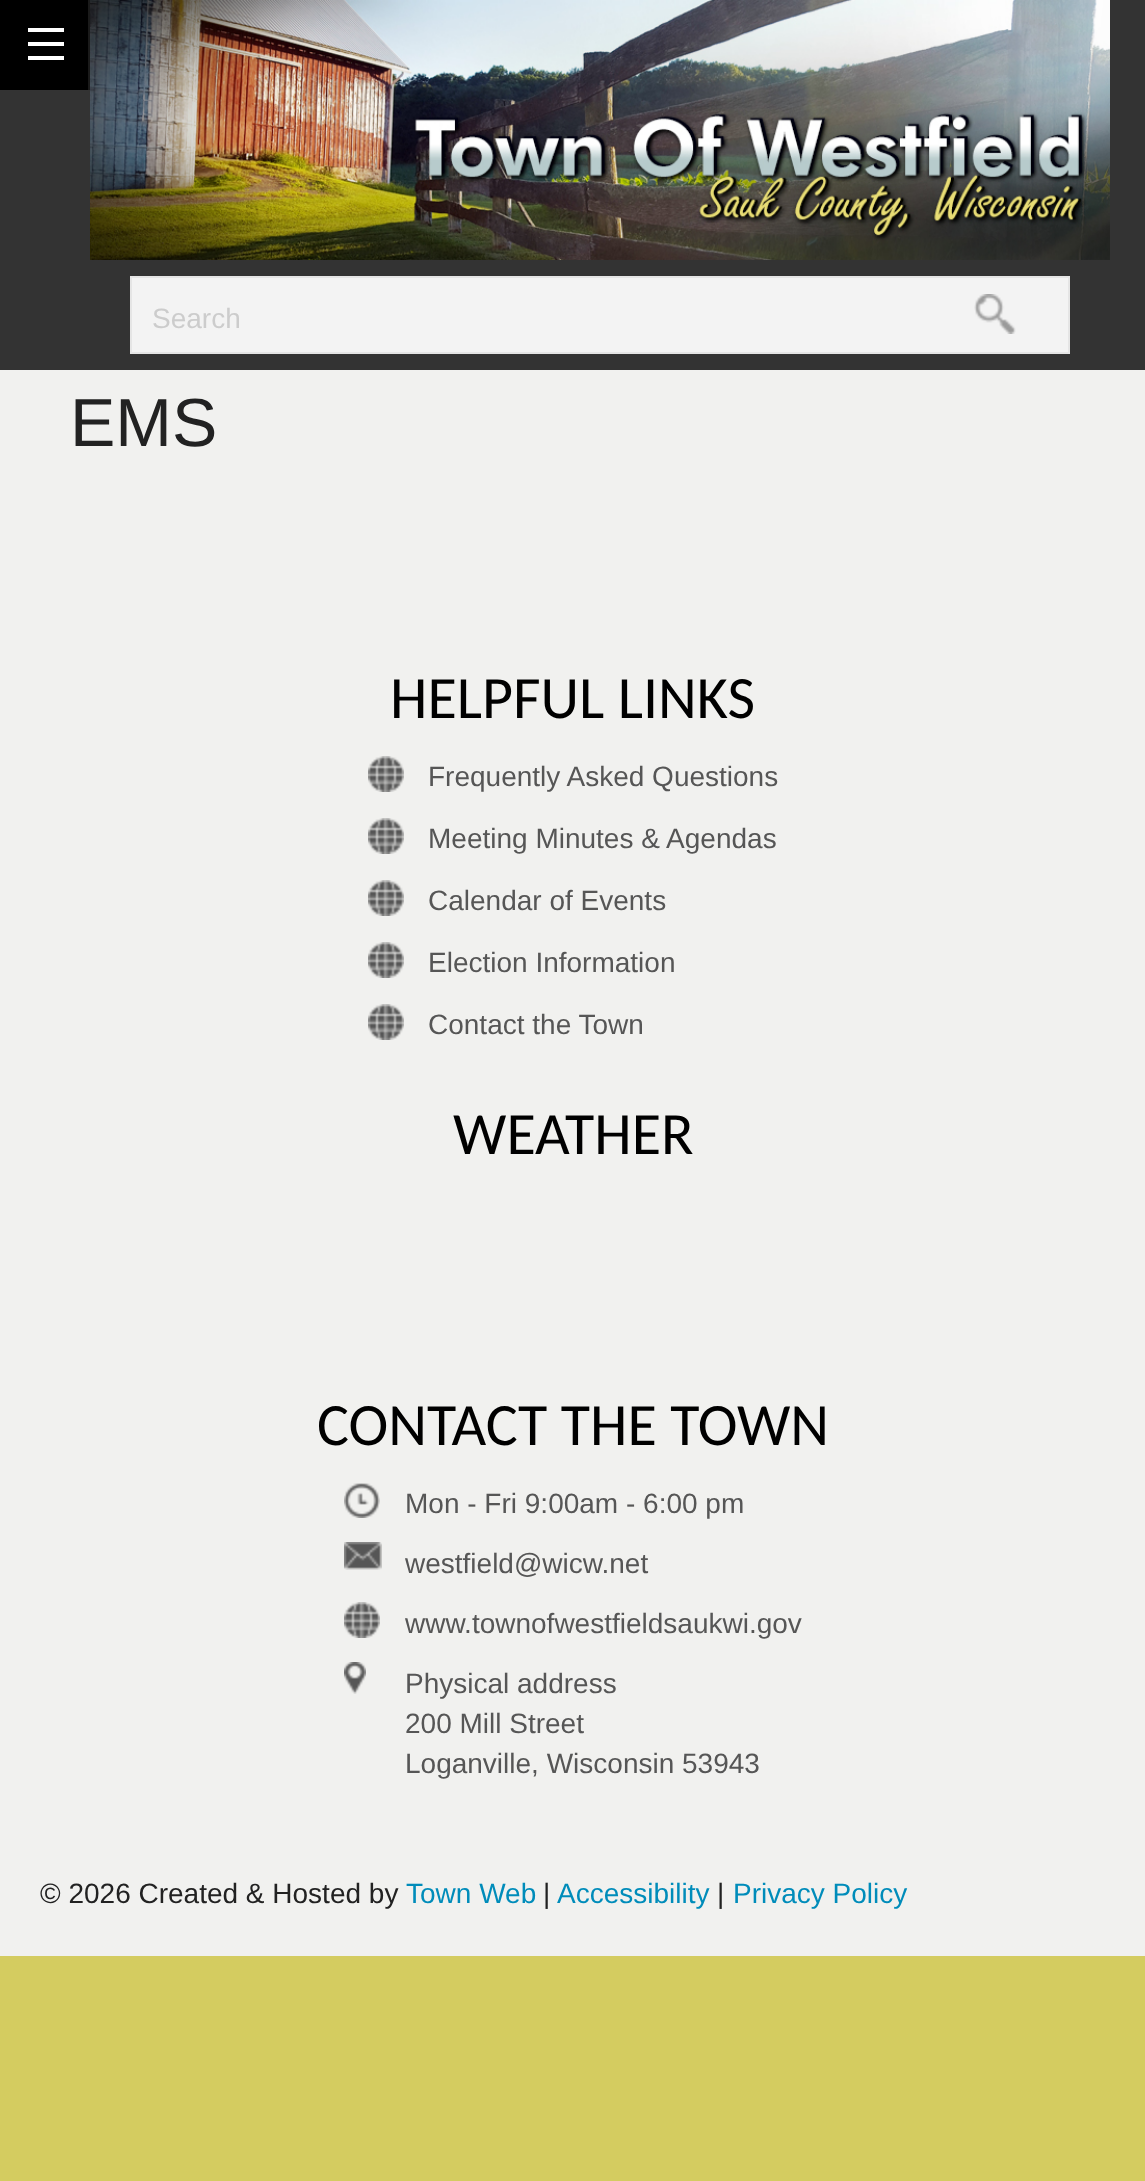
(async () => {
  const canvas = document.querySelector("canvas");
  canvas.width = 1145;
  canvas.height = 2181;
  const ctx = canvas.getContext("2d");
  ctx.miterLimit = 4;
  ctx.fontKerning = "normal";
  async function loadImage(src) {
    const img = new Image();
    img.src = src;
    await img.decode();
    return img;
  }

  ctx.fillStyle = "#d4cc60";
  ctx.fillRect(0, 0, 1145, 2181);
  for (const [x, y, w, h, color] of [
    [0, 0, 1145, 370, "#333333"],
    [0, 0, 88, 90, "#000000"],
    [88, 0, 2, 90, "#1a1a1a"],
    [28, 56, 36, 4, "#ffffff"],
    [28, 42, 36, 4, "#ffffff"],
    [28, 28, 36, 4, "#ffffff"],
  ]) {
    ctx.fillStyle = color;
    ctx.fillRect(x, y, w, h);
  }
  ctx.drawImage(await loadImage("img/1.png"), 90, 0, 1020, 260);
  ctx.fillStyle = "#f3f3f3";
  ctx.beginPath();
  ctx.rect(131, 277, 938, 76);
  ctx.fill();
  ctx.strokeStyle = "#e5e5e5";
  ctx.lineWidth = 2;
  ctx.stroke();
  ctx.drawImage(await loadImage("img/2.png"), 974, 294, 42, 40);
  ctx.fillStyle = "#f1f1ef";
  ctx.fillRect(0, 370, 1145, 1586);
  ctx.drawImage(await loadImage("img/3.png"), 368, 756, 36, 36);
  ctx.drawImage(await loadImage("img/3.png"), 368, 818, 36, 36);
  ctx.drawImage(await loadImage("img/3.png"), 368, 880, 36, 36);
  ctx.drawImage(await loadImage("img/3.png"), 368, 942, 36, 36);
  ctx.drawImage(await loadImage("img/3.png"), 368, 1004, 36, 36);
  ctx.drawImage(await loadImage("img/4.png"), 344, 1483, 36, 35);
  ctx.drawImage(await loadImage("img/5.png"), 344, 1542, 38, 28);
  ctx.drawImage(await loadImage("img/3.png"), 344, 1602, 36, 36);
  ctx.drawImage(await loadImage("img/6.png"), 344, 1662, 22, 32);
  ctx.font = "28px Liberation Sans";
  ctx.fillStyle = "#cccccc";
  ctx.fillText("Search", 152, 328);
  ctx.font = "68px Liberation Sans";
  ctx.fillStyle = "#222222";
  ctx.fillText("EMS", 70, 446);
  ctx.font = "60px Carlito";
  ctx.fillStyle = "#000000";
  ctx.fillText("HELPFUL LINKS", 390, 718);
  ctx.font = "28px Liberation Sans";
  ctx.fillStyle = "#565656";
  for (const [text, x, y] of [
    ["Frequently Asked Questions", 428, 786],
    ["Meeting Minutes & Agendas", 428, 848],
    ["Calendar of Events", 428, 910],
    ["Election Information", 428, 972],
    ["Contact the Town", 428, 1034],
  ]) {
    ctx.fillText(text, x, y);
  }
  ctx.font = "60px Carlito";
  ctx.fillStyle = "#000000";
  ctx.fillText("WEATHER", 453, 1154);
  ctx.fillText("CONTACT THE TOWN", 317, 1445);
  ctx.font = "28px Liberation Sans";
  ctx.fillStyle = "#565656";
  for (const [text, x, y] of [
    ["Mon - Fri 9:00am - 6:00 pm", 405, 1513],
    ["westfield@wicw.net", 405, 1573],
    ["www.townofwestfieldsaukwi.gov", 405, 1633],
    ["Physical address", 405, 1693],
    ["200 Mill Street", 405, 1733],
    ["Loganville, Wisconsin 53943", 405, 1773],
  ]) {
    ctx.fillText(text, x, y);
  }
  ctx.fillStyle = "#222222";
  ctx.fillText("© 2026 Created & Hosted by", 40, 1903);
  ctx.fillStyle = "#008cba";
  ctx.fillText("Town Web", 406, 1903);
  ctx.fillStyle = "#222222";
  ctx.fillText("|", 543, 1903);
  ctx.fillStyle = "#008cba";
  ctx.fillText("Accessibility", 557, 1903);
  ctx.fillStyle = "#222222";
  ctx.fillText("|", 717, 1903);
  ctx.fillStyle = "#008cba";
  ctx.fillText("Privacy Policy", 733, 1903);
})();
